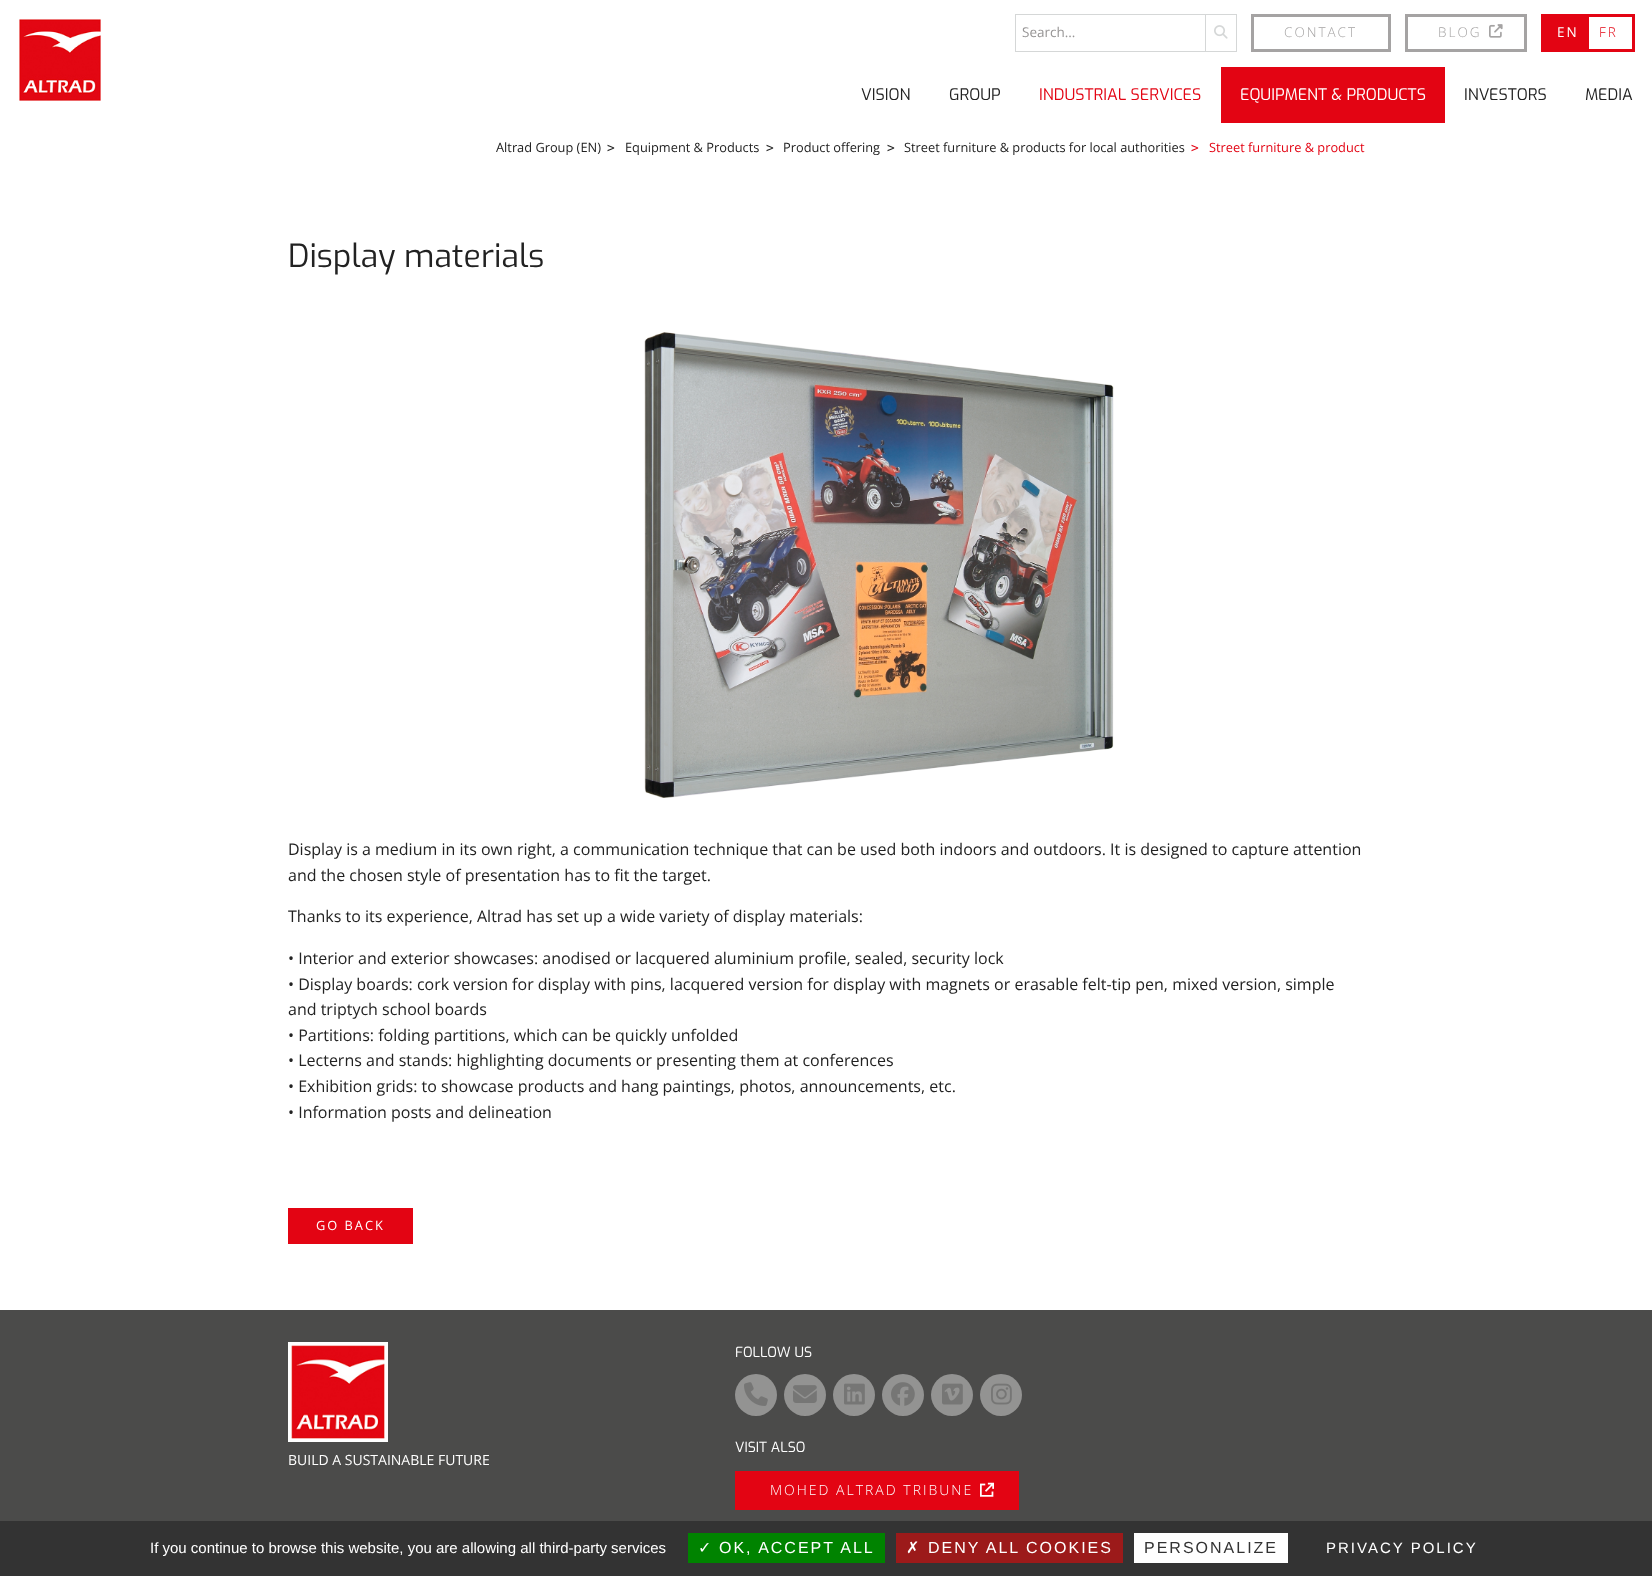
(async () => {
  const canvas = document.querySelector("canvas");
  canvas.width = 1652;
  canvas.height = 1576;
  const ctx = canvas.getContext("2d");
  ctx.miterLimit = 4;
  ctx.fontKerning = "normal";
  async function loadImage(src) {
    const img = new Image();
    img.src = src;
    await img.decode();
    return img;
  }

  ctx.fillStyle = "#ffffff";
  ctx.fillRect(0, 0, 1652, 1576);
  ctx.drawImage(await loadImage("img/1.png"), 19, 19, 82, 82);
  for (const [x, y, w, h, color] of [
    [1015, 14, 190, 1, "#d5d7d7"],
    [1015, 51, 190, 1, "#d5d7d7"],
    [1015, 14, 1, 38, "#d5d7d7"],
  ]) {
    ctx.fillStyle = color;
    ctx.fillRect(x, y, w, h);
  }
  ctx.strokeStyle = "#d5d7d7";
  ctx.strokeRect(1205.5, 14.5, 31, 37);
  ctx.drawImage(await loadImage("img/2.png"), 1214, 25, 14, 14);
  ctx.strokeStyle = "#a5a3a3";
  ctx.lineWidth = 3;
  ctx.strokeRect(1252.5, 15.5, 137, 35);
  ctx.strokeRect(1406.5, 15.5, 119, 35);
  ctx.drawImage(await loadImage("img/3.png"), 1489, 24, 14, 14);
  for (const [x, y, w, h, color] of [
    [1541, 14, 48, 38, "#e30413"],
    [1589, 14, 46, 3, "#e30413"],
    [1632, 14, 3, 38, "#e30413"],
    [1589, 49, 46, 3, "#e30413"],
    [1221, 67, 224, 56, "#e30413"],
  ]) {
    ctx.fillStyle = color;
    ctx.fillRect(x, y, w, h);
  }
  ctx.drawImage(await loadImage("img/4.png"), 644, 332, 470, 466);
  ctx.fillRect(288, 1208, 125, 36);
  ctx.fillStyle = "#4b4b4a";
  ctx.fillRect(0, 1310, 1652, 211);
  ctx.drawImage(await loadImage("img/5.png"), 288, 1342, 100, 100);
  ctx.fillStyle = "#939392";
  ctx.beginPath();
  ctx.arc(756, 1395, 21, 0, Math.PI * 2);
  ctx.fill();
  ctx.drawImage(await loadImage("img/6.png"), 744, 1382, 24, 24);
  ctx.beginPath();
  ctx.arc(805, 1395, 21, 0, Math.PI * 2);
  ctx.fill();
  ctx.drawImage(await loadImage("img/7.png"), 793, 1385, 24, 18);
  ctx.beginPath();
  ctx.arc(854, 1395, 21, 0, Math.PI * 2);
  ctx.fill();
  ctx.drawImage(await loadImage("img/8.png"), 844, 1383, 21, 22);
  ctx.beginPath();
  ctx.arc(903, 1395, 21, 0, Math.PI * 2);
  ctx.fill();
  ctx.drawImage(await loadImage("img/9.png"), 891, 1382, 24, 24);
  ctx.beginPath();
  ctx.arc(952, 1395, 21, 0, Math.PI * 2);
  ctx.fill();
  ctx.drawImage(await loadImage("img/10.png"), 942, 1383, 21, 22);
  ctx.beginPath();
  ctx.arc(1001, 1395, 21, 0, Math.PI * 2);
  ctx.fill();
  ctx.drawImage(await loadImage("img/11.png"), 991, 1383, 21, 22);
  ctx.fillStyle = "#e30413";
  ctx.fillRect(735, 1471, 284, 39);
  ctx.drawImage(await loadImage("img/12.png"), 980, 1482, 14, 15);
  for (const [x, y, w, h, color] of [
    [0, 1521, 1652, 55, "#333333"],
    [688, 1533, 197, 30, "#008300"],
    [896, 1533, 227, 30, "#9c1a1a"],
    [1134, 1533, 154, 30, "#ffffff"],
  ]) {
    ctx.fillStyle = color;
    ctx.fillRect(x, y, w, h);
  }
  ctx.font = "13.5px Open Sans";
  ctx.fillStyle = "#979595";
  ctx.fillText("Search...", 1022, 37);
  ctx.letterSpacing = "2px";
  ctx.font = "300 13.5px Open Sans";
  ctx.fillStyle = "#a5a3a3";
  ctx.fillText("CONTACT", 1284, 37);
  ctx.fillText("BLOG", 1438, 37);
  ctx.font = "13.5px Open Sans";
  ctx.fillStyle = "#ffffff";
  ctx.fillText("EN", 1557, 37);
  ctx.font = "300 13.5px Open Sans";
  ctx.fillStyle = "#e30413";
  ctx.fillText("FR", 1599, 37);
  ctx.letterSpacing = "0px";
  ctx.font = "16px Exo";
  ctx.fillStyle = "#222222";
  ctx.fillText("VISION", 861, 100);
  ctx.fillText("GROUP", 949, 100);
  ctx.fillStyle = "#e30413";
  ctx.fillText("INDUSTRIAL SERVICES", 1039, 100);
  ctx.fillStyle = "#ffffff";
  ctx.fillText("EQUIPMENT & PRODUCTS", 1240, 100);
  ctx.fillStyle = "#222222";
  ctx.fillText("INVESTORS", 1464, 100);
  ctx.fillText("MEDIA", 1585, 100);
  ctx.font = "12.8px Open Sans";
  ctx.fillText("Altrad Group (EN)", 496, 152);
  ctx.font = "12.8px DejaVu Sans Mono";
  ctx.fillText(">", 607, 152);
  ctx.font = "12.8px Open Sans";
  ctx.fillText("Equipment & Products", 625, 152);
  ctx.font = "12.8px DejaVu Sans Mono";
  ctx.fillText(">", 766, 152);
  ctx.font = "12.8px Open Sans";
  ctx.fillText("Product offering", 783, 152);
  ctx.font = "12.8px DejaVu Sans Mono";
  ctx.fillText(">", 887, 152);
  ctx.font = "12.8px Open Sans";
  ctx.fillText("Street furniture & products for local authorities", 904, 152);
  ctx.font = "12.8px DejaVu Sans Mono";
  ctx.fillStyle = "#e30413";
  ctx.fillText(">", 1191, 152);
  ctx.font = "12.8px Open Sans";
  ctx.fillText("Street furniture & product", 1209, 152);
  ctx.font = "32px Exo";
  ctx.fillStyle = "#222222";
  ctx.fillText("Display materials", 288, 267);
  ctx.font = "16px Open Sans";
  for (const [text, x, y] of [
    ["Display is a medium in its own right, a communication technique that can be used both indoors and outdoors. It is designed to capture attention", 288, 855],
    ["and the chosen style of presentation has to fit the target.", 288, 881],
    ["Thanks to its experience, Altrad has set up a wide variety of display materials:", 288, 922],
    ["• Interior and exterior showcases: anodised or lacquered aluminium profile, sealed, security lock", 288, 964],
    ["• Display boards: cork version for display with pins, lacquered version for display with magnets or erasable felt-tip pen, mixed version, simple", 288, 990],
    ["and triptych school boards", 288, 1015],
    ["• Partitions: folding partitions, which can be quickly unfolded", 288, 1041],
    ["• Lecterns and stands: highlighting documents or presenting them at conferences", 288, 1066],
    ["• Exhibition grids: to showcase products and hang paintings, photos, announcements, etc.", 288, 1092],
    ["• Information posts and delineation", 288, 1118],
  ]) {
    ctx.fillText(text, x, y);
  }
  ctx.letterSpacing = "2px";
  ctx.font = "12.8px Open Sans";
  ctx.fillStyle = "#ffffff";
  ctx.fillText("GO BACK", 316, 1230);
  ctx.letterSpacing = "0px";
  ctx.font = "14px Open Sans";
  ctx.fillText("BUILD A SUSTAINABLE FUTURE", 288, 1465);
  ctx.font = "14px Exo";
  ctx.fillText("FOLLOW US", 735, 1357);
  ctx.fillText("VISIT ALSO", 735, 1452);
  ctx.letterSpacing = "2px";
  ctx.font = "300 14px Open Sans";
  ctx.fillText("MOHED ALTRAD TRIBUNE", 770, 1495);
  ctx.letterSpacing = "0px";
  ctx.font = "15px Liberation Sans";
  ctx.fillText("If you continue to browse this website, you are allowing all third-party services", 150, 1553);
  ctx.letterSpacing = "2px";
  ctx.font = "16px DejaVu Sans";
  ctx.fillText("✓", 698, 1553);
  ctx.font = "16px Liberation Sans";
  ctx.fillText("OK, ACCEPT ALL", 719, 1553);
  ctx.font = "16px DejaVu Sans";
  ctx.fillText("✗", 906, 1553);
  ctx.font = "16px Liberation Sans";
  ctx.fillText("DENY ALL COOKIES", 928, 1553);
  ctx.fillStyle = "#333333";
  ctx.fillText("PERSONALIZE", 1144, 1553);
  ctx.font = "15px Liberation Sans";
  ctx.fillStyle = "#ffffff";
  ctx.fillText("PRIVACY POLICY", 1326, 1553);
})();
